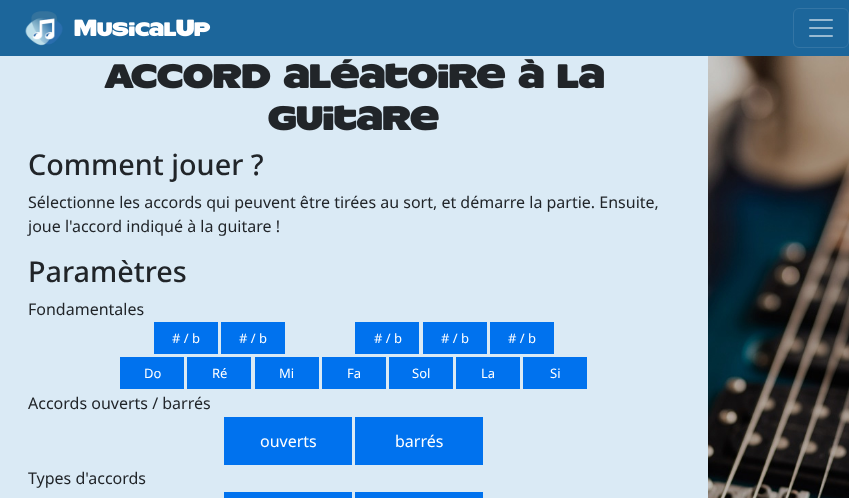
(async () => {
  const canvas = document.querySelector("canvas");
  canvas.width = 849;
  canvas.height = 498;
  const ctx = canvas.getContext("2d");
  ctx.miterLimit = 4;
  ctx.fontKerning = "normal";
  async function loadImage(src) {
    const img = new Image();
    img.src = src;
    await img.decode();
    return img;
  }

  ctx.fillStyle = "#1c669b";
  ctx.fillRect(0, 0, 849, 498);
  ctx.drawImage(await loadImage("img/1.png"), 25, 11, 38, 35);
  ctx.drawImage(await loadImage("img/2.png"), 74, 19, 23, 17);
  ctx.drawImage(await loadImage("img/3.png"), 97, 22, 80, 15);
  ctx.drawImage(await loadImage("img/4.png"), 176, 19, 18, 18);
  ctx.drawImage(await loadImage("img/5.png"), 194, 22, 17, 14);
  ctx.beginPath();
  ctx.roundRect(793.5, 8.5, 55, 39, 5.5);
  ctx.strokeStyle = "#3375a5";
  ctx.stroke();
  ctx.drawImage(await loadImage("img/6.png"), 809, 19, 24, 18);
  ctx.fillStyle = "#daeaf5";
  ctx.fillRect(0, 56, 708, 442);
  ctx.drawImage(await loadImage("img/7.png"), 104, 59, 500, 30);
  ctx.drawImage(await loadImage("img/8.png"), 268, 105, 171, 26);
  for (const [x, y, w, h, color] of [
    [154, 322, 64, 32, "#0072ee"],
    [221, 322, 64, 32, "#0072ee"],
    [355, 322, 64, 32, "#0072ee"],
    [423, 322, 64, 32, "#0072ee"],
    [490, 322, 64, 32, "#0072ee"],
    [120, 357, 64, 32, "#0072ee"],
    [187, 357, 64, 32, "#0072ee"],
    [255, 357, 64, 32, "#0072ee"],
    [322, 357, 64, 32, "#0072ee"],
    [389, 357, 64, 32, "#0072ee"],
    [456, 357, 64, 32, "#0072ee"],
    [523, 357, 64, 32, "#0072ee"],
    [224, 417, 128, 48, "#0072ee"],
    [355, 417, 128, 48, "#0072ee"],
    [224, 492, 128, 6, "#0072ee"],
    [355, 492, 128, 6, "#0072ee"],
  ]) {
    ctx.fillStyle = color;
    ctx.fillRect(x, y, w, h);
  }
  ctx.drawImage(await loadImage("img/9.png"), 708, 56, 141, 442);
  ctx.font = "500 28.75px Noto Sans";
  ctx.fillStyle = "#212529";
  ctx.fillText("Comment jouer ?", 28, 175);
  ctx.font = "16px Noto Sans";
  ctx.fillText("Sélectionne les accords qui peuvent être tirées au sort, et démarre la partie. Ensuite,", 28, 208);
  ctx.fillText("joue l'accord indiqué à la guitare !", 28, 232);
  ctx.font = "500 28.75px Noto Sans";
  ctx.fillText("Paramètres", 28, 282);
  ctx.font = "16px Noto Sans";
  ctx.fillText("Fondamentales", 28, 315);
  ctx.font = "13px Noto Sans";
  ctx.fillStyle = "#ffffff";
  for (const [text, x, y] of [
    ["# / b", 172, 343],
    ["# / b", 239, 343],
    ["# / b", 374, 343],
    ["# / b", 441, 343],
    ["# / b", 508, 343],
    ["Do", 144, 378],
    ["Ré", 212, 378],
    ["Mi", 279, 378],
    ["Fa", 347, 378],
    ["Sol", 412, 378],
    ["La", 481, 378],
    ["Si", 550, 378],
  ]) {
    ctx.fillText(text, x, y);
  }
  ctx.font = "16px Noto Sans";
  ctx.fillStyle = "#212529";
  ctx.fillText("Accords ouverts / barrés", 28, 409);
  ctx.fillStyle = "#ffffff";
  ctx.fillText("ouverts", 260, 447);
  ctx.fillText("barrés", 395, 447);
  ctx.fillStyle = "#212529";
  ctx.fillText("Types d'accords", 28, 484);
})();
